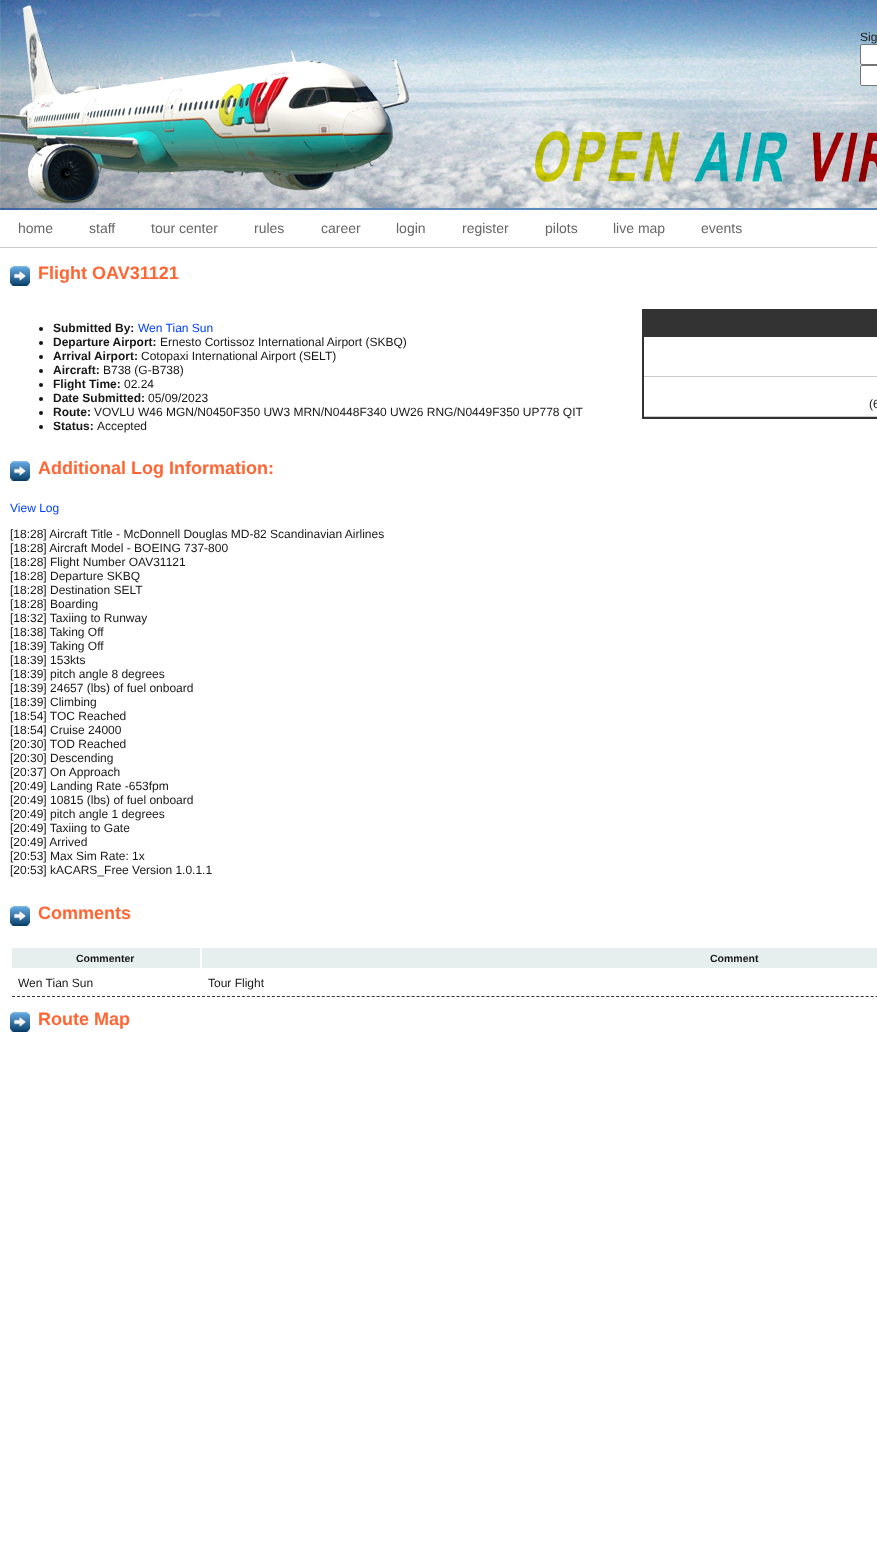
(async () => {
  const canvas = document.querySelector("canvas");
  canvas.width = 877;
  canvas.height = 1558;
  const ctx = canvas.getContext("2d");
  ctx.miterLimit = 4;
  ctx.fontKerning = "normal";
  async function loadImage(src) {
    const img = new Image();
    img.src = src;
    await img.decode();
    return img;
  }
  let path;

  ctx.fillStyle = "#ffffff";
  ctx.fillRect(0, 0, 877, 1558);
  ctx.drawImage(await loadImage("img/1.png"), 0, 0, 877, 210);
  ctx.beginPath();
  ctx.roundRect(860.5, 44.5, 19, 20, 1.5);
  ctx.fill();
  ctx.strokeStyle = "#767676";
  ctx.stroke();
  ctx.beginPath();
  ctx.roundRect(860.5, 65.5, 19, 20, 1.5);
  ctx.fill();
  ctx.stroke();
  ctx.fillStyle = "#cccccc";
  ctx.fillRect(0, 247, 877, 1);
  ctx.drawImage(await loadImage("img/2.png"), 10, 266, 20, 20);
  ctx.fillStyle = "#171717";
  ctx.beginPath();
  ctx.arc(41, 329, 2, 0, Math.PI * 2);
  ctx.fill();
  ctx.beginPath();
  ctx.arc(41, 343, 2, 0, Math.PI * 2);
  ctx.fill();
  ctx.beginPath();
  ctx.arc(41, 357, 2, 0, Math.PI * 2);
  ctx.fill();
  ctx.beginPath();
  ctx.arc(41, 371, 2, 0, Math.PI * 2);
  ctx.fill();
  ctx.beginPath();
  ctx.arc(41, 385, 2, 0, Math.PI * 2);
  ctx.fill();
  ctx.beginPath();
  ctx.arc(41, 399, 2, 0, Math.PI * 2);
  ctx.fill();
  ctx.beginPath();
  ctx.arc(41, 413, 2, 0, Math.PI * 2);
  ctx.fill();
  ctx.beginPath();
  ctx.arc(41, 427, 2, 0, Math.PI * 2);
  ctx.fill();
  ctx.strokeStyle = "#333333";
  ctx.lineWidth = 2;
  ctx.strokeRect(643, 310, 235, 108);
  for (const [x, y, w, h, color] of [
    [644, 311, 233, 26, "#333333"],
    [644, 376, 233, 1, "#cccccc"],
    [644, 416, 233, 1, "#cccccc"],
  ]) {
    ctx.fillStyle = color;
    ctx.fillRect(x, y, w, h);
  }
  ctx.drawImage(await loadImage("img/2.png"), 10, 461, 20, 20);
  ctx.drawImage(await loadImage("img/2.png"), 10, 906, 20, 20);
  ctx.fillStyle = "#e6eeee";
  ctx.fillRect(12, 948, 188, 20);
  ctx.fillRect(202, 948, 675, 20);
  path = new Path2D("M12 996.5H200");
  ctx.lineWidth = 1;
  ctx.setLineDash([3, 2]);
  ctx.stroke(path);
  path = new Path2D("M202 996.5H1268");
  ctx.setLineDash([3, 1.99]);
  ctx.stroke(path);
  ctx.drawImage(await loadImage("img/2.png"), 10, 1012, 20, 20);
  ctx.font = "12px Liberation Sans";
  ctx.fillStyle = "#171717";
  ctx.fillText("Sig", 860, 41);
  ctx.font = "14px Liberation Sans";
  ctx.fillStyle = "#666666";
  for (const [text, x, y] of [
    ["home", 18, 233],
    ["staff", 89, 233],
    ["tour center", 151, 233],
    ["rules", 254, 233],
    ["career", 321, 233],
    ["login", 396, 233],
    ["register", 462, 233],
    ["pilots", 545, 233],
    ["live map", 613, 233],
    ["events", 701, 233],
  ]) {
    ctx.fillText(text, x, y);
  }
  ctx.font = "bold 18px Liberation Sans";
  ctx.fillStyle = "#ff6633";
  ctx.fillText("Flight OAV31121", 38, 279);
  ctx.font = "bold 12px Liberation Sans";
  ctx.fillStyle = "#171717";
  ctx.fillText("Submitted By:", 53, 332);
  ctx.font = "12px Liberation Sans";
  ctx.fillStyle = "#0040ff";
  ctx.fillText("Wen Tian Sun", 138, 332);
  ctx.font = "bold 12px Liberation Sans";
  ctx.fillStyle = "#171717";
  ctx.fillText("Departure Airport:", 53, 346);
  ctx.font = "12px Liberation Sans";
  ctx.fillText("Ernesto Cortissoz International Airport (SKBQ)", 160, 346);
  ctx.font = "bold 12px Liberation Sans";
  ctx.fillText("Arrival Airport:", 53, 360);
  ctx.font = "12px Liberation Sans";
  ctx.fillText("Cotopaxi International Airport (SELT)", 141, 360);
  ctx.font = "bold 12px Liberation Sans";
  ctx.fillText("Aircraft:", 53, 374);
  ctx.font = "12px Liberation Sans";
  ctx.fillText("B738 (G-B738)", 103, 374);
  ctx.font = "bold 12px Liberation Sans";
  ctx.fillText("Flight Time:", 53, 388);
  ctx.font = "12px Liberation Sans";
  ctx.fillText("02.24", 124, 388);
  ctx.font = "bold 12px Liberation Sans";
  ctx.fillText("Date Submitted:", 53, 402);
  ctx.font = "12px Liberation Sans";
  ctx.fillText("05/09/2023", 148, 402);
  ctx.font = "bold 12px Liberation Sans";
  ctx.fillText("Route:", 53, 416);
  ctx.font = "12px Liberation Sans";
  ctx.fillText("VOVLU W46 MGN/N0450F350 UW3 MRN/N0448F340 UW26 RNG/N0449F350 UP778 QIT", 94, 416);
  ctx.font = "bold 12px Liberation Sans";
  ctx.fillText("Status:", 53, 430);
  ctx.font = "12px Liberation Sans";
  ctx.fillText("Accepted", 97, 430);
  ctx.fillText("(6", 869, 408);
  ctx.font = "bold 18px Liberation Sans";
  ctx.fillStyle = "#ff6633";
  ctx.fillText("Additional Log Information:", 38, 474);
  ctx.font = "12px Liberation Sans";
  ctx.fillStyle = "#0040ff";
  ctx.fillText("View Log", 10, 512);
  ctx.fillStyle = "#171717";
  for (const [text, x, y] of [
    ["[18:28] Aircraft Title - McDonnell Douglas MD-82 Scandinavian Airlines", 10, 538],
    ["[18:28] Aircraft Model - BOEING 737-800", 10, 552],
    ["[18:28] Flight Number OAV31121", 10, 566],
    ["[18:28] Departure SKBQ", 10, 580],
    ["[18:28] Destination SELT", 10, 594],
    ["[18:28] Boarding", 10, 608],
    ["[18:32] Taxiing to Runway", 10, 622],
    ["[18:38] Taking Off", 10, 636],
    ["[18:39] Taking Off", 10, 650],
    ["[18:39] 153kts", 10, 664],
    ["[18:39] pitch angle 8 degrees", 10, 678],
    ["[18:39] 24657 (lbs) of fuel onboard", 10, 692],
    ["[18:39] Climbing", 10, 706],
    ["[18:54] TOC Reached", 10, 720],
    ["[18:54] Cruise 24000", 10, 734],
    ["[20:30] TOD Reached", 10, 748],
    ["[20:30] Descending", 10, 762],
    ["[20:37] On Approach", 10, 776],
    ["[20:49] Landing Rate -653fpm", 10, 790],
    ["[20:49] 10815 (lbs) of fuel onboard", 10, 804],
    ["[20:49] pitch angle 1 degrees", 10, 818],
    ["[20:49] Taxiing to Gate", 10, 832],
    ["[20:49] Arrived", 10, 846],
    ["[20:53] Max Sim Rate: 1x", 10, 860],
    ["[20:53] kACARS_Free Version 1.0.1.1", 10, 874],
  ]) {
    ctx.fillText(text, x, y);
  }
  ctx.font = "bold 18px Liberation Sans";
  ctx.fillStyle = "#ff6633";
  ctx.fillText("Comments", 38, 919);
  ctx.font = "bold 10.5px Liberation Sans";
  ctx.fillStyle = "#171717";
  ctx.fillText("Commenter", 76, 962);
  ctx.fillText("Comment", 710, 962);
  ctx.font = "12px Liberation Sans";
  ctx.fillText("Wen Tian Sun", 18, 987);
  ctx.fillText("Tour Flight", 208, 987);
  ctx.font = "bold 18px Liberation Sans";
  ctx.fillStyle = "#ff6633";
  ctx.fillText("Route Map", 38, 1025);
})();
